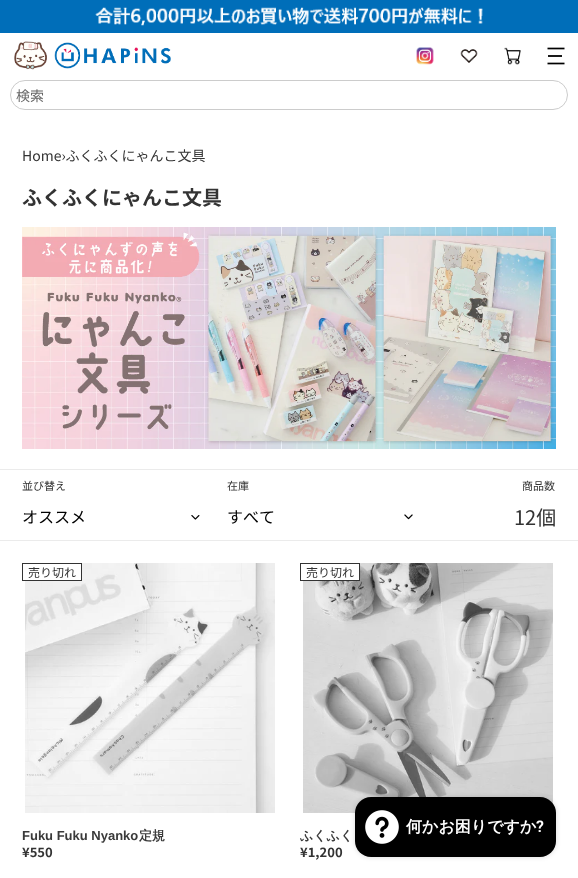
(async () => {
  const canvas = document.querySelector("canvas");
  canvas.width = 578;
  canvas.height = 878;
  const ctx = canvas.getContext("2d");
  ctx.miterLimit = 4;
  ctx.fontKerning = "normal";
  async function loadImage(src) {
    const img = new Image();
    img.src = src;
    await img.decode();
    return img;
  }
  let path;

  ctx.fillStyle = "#ffffff";
  ctx.fillRect(0, 0, 578, 878);
  ctx.fillStyle = "#006eb9";
  ctx.fillRect(0, 0, 578, 33);
  ctx.drawImage(await loadImage("img/1.png"), 95, 7, 388, 19);
  ctx.drawImage(await loadImage("img/2.png"), 14, 41, 157, 29);
  ctx.drawImage(await loadImage("img/3.png"), 416, 47, 18, 18);
  ctx.drawImage(await loadImage("img/4.png"), 460, 49, 18, 14);
  ctx.drawImage(await loadImage("img/5.png"), 504, 47, 17, 18);
  path = new Path2D("M547.5 48.5H564.5");
  ctx.strokeStyle = "#000000";
  ctx.lineWidth = 1.7;
  ctx.lineJoin = "round";
  ctx.stroke(path);
  ctx.fillStyle = "#1a1a1a";
  ctx.fillRect(548, 55, 14, 2);
  path = new Path2D("M547.5 63.5H564.5");
  ctx.stroke(path);
  ctx.beginPath();
  ctx.roundRect(10.5, 80.5, 557, 29, 14.5);
  ctx.strokeStyle = "#cccccc";
  ctx.lineWidth = 1;
  ctx.lineJoin = "miter";
  ctx.stroke();
  ctx.drawImage(await loadImage("img/6.png"), 22, 227, 534, 222);
  ctx.fillStyle = "#ebebeb";
  ctx.fillRect(0, 469, 578, 1);
  ctx.fillRect(0, 540, 578, 1);
  ctx.drawImage(await loadImage("img/7.png"), 191, 515, 9, 5);
  ctx.drawImage(await loadImage("img/8.png"), 404, 514, 9, 6);
  ctx.drawImage(await loadImage("img/9.png"), 25, 563, 250, 250);
  ctx.fillStyle = "#ffffff";
  ctx.fillRect(25, 564, 56, 16);
  ctx.strokeStyle = "#333333";
  ctx.strokeRect(22.5, 563.5, 59, 17);
  ctx.drawImage(await loadImage("img/10.png"), 303, 563, 250, 250);
  ctx.fillRect(303, 564, 56, 16);
  ctx.strokeRect(300.5, 563.5, 59, 17);
  ctx.fillStyle = "rgba(0, 0, 0, 0.15)";
  ctx.filter = "blur(2.5px)";
  ctx.beginPath();
  ctx.roundRect(355, 797, 201, 60, 16);
  ctx.fill();
  ctx.filter = "none";
  ctx.fillStyle = "#000000";
  ctx.beginPath();
  ctx.roundRect(355, 797, 201, 60, 16);
  ctx.fill();
  ctx.drawImage(await loadImage("img/11.png"), 365, 810, 34, 34);
  ctx.font = "14px Noto Sans JP";
  ctx.fillStyle = "#666666";
  ctx.fillText("検索", 16, 101);
  ctx.fillStyle = "#333333";
  ctx.fillText("Home›ふくふくにゃんこ文具", 22, 161);
  ctx.font = "bold 20px Noto Sans JP";
  ctx.fillText("ふくふくにゃんこ文具", 22, 205);
  ctx.font = "11px Noto Sans JP";
  ctx.fillText("並び替え", 22, 490);
  ctx.font = "16px Noto Sans JP";
  ctx.fillStyle = "#000000";
  ctx.fillText("オススメ", 22, 523);
  ctx.font = "11px Noto Sans JP";
  ctx.fillStyle = "#333333";
  ctx.fillText("在庫", 227, 490);
  ctx.font = "16px Noto Sans JP";
  ctx.fillStyle = "#000000";
  ctx.fillText("すべて", 227, 523);
  ctx.font = "11px Noto Sans JP";
  ctx.fillStyle = "#333333";
  ctx.fillText("商品数", 522, 490);
  ctx.font = "20px Noto Sans JP";
  ctx.fillText("12個", 514, 525);
  ctx.font = "12px Noto Sans JP";
  ctx.fillText("売り切れ", 28, 577);
  ctx.font = "bold 13px Liberation Sans";
  ctx.fillStyle = "#3a3a3a";
  ctx.fillText("Fuku Fuku Nyanko", 22, 840);
  ctx.font = "bold 13px WenQuanYi Zen Hei";
  ctx.fillText("定規", 139, 840);
  ctx.font = "bold 13px Noto Sans JP";
  ctx.fillStyle = "#333333";
  ctx.fillText("¥550", 22, 857);
  ctx.font = "12px Noto Sans JP";
  ctx.fillText("売り切れ", 306, 577);
  ctx.font = "bold 13px WenQuanYi Zen Hei";
  ctx.fillStyle = "#3a3a3a";
  ctx.fillText("ふくふく", 300, 840);
  ctx.font = "bold 13px Noto Sans JP";
  ctx.fillStyle = "#333333";
  ctx.fillText("¥1,200", 300, 857);
  ctx.font = "bold 16px WenQuanYi Zen Hei";
  ctx.fillStyle = "#ffffff";
  ctx.fillText("何かお困りですか", 406, 832);
  ctx.font = "600 16px Roboto";
  ctx.fillText("?", 536, 832);
})();
